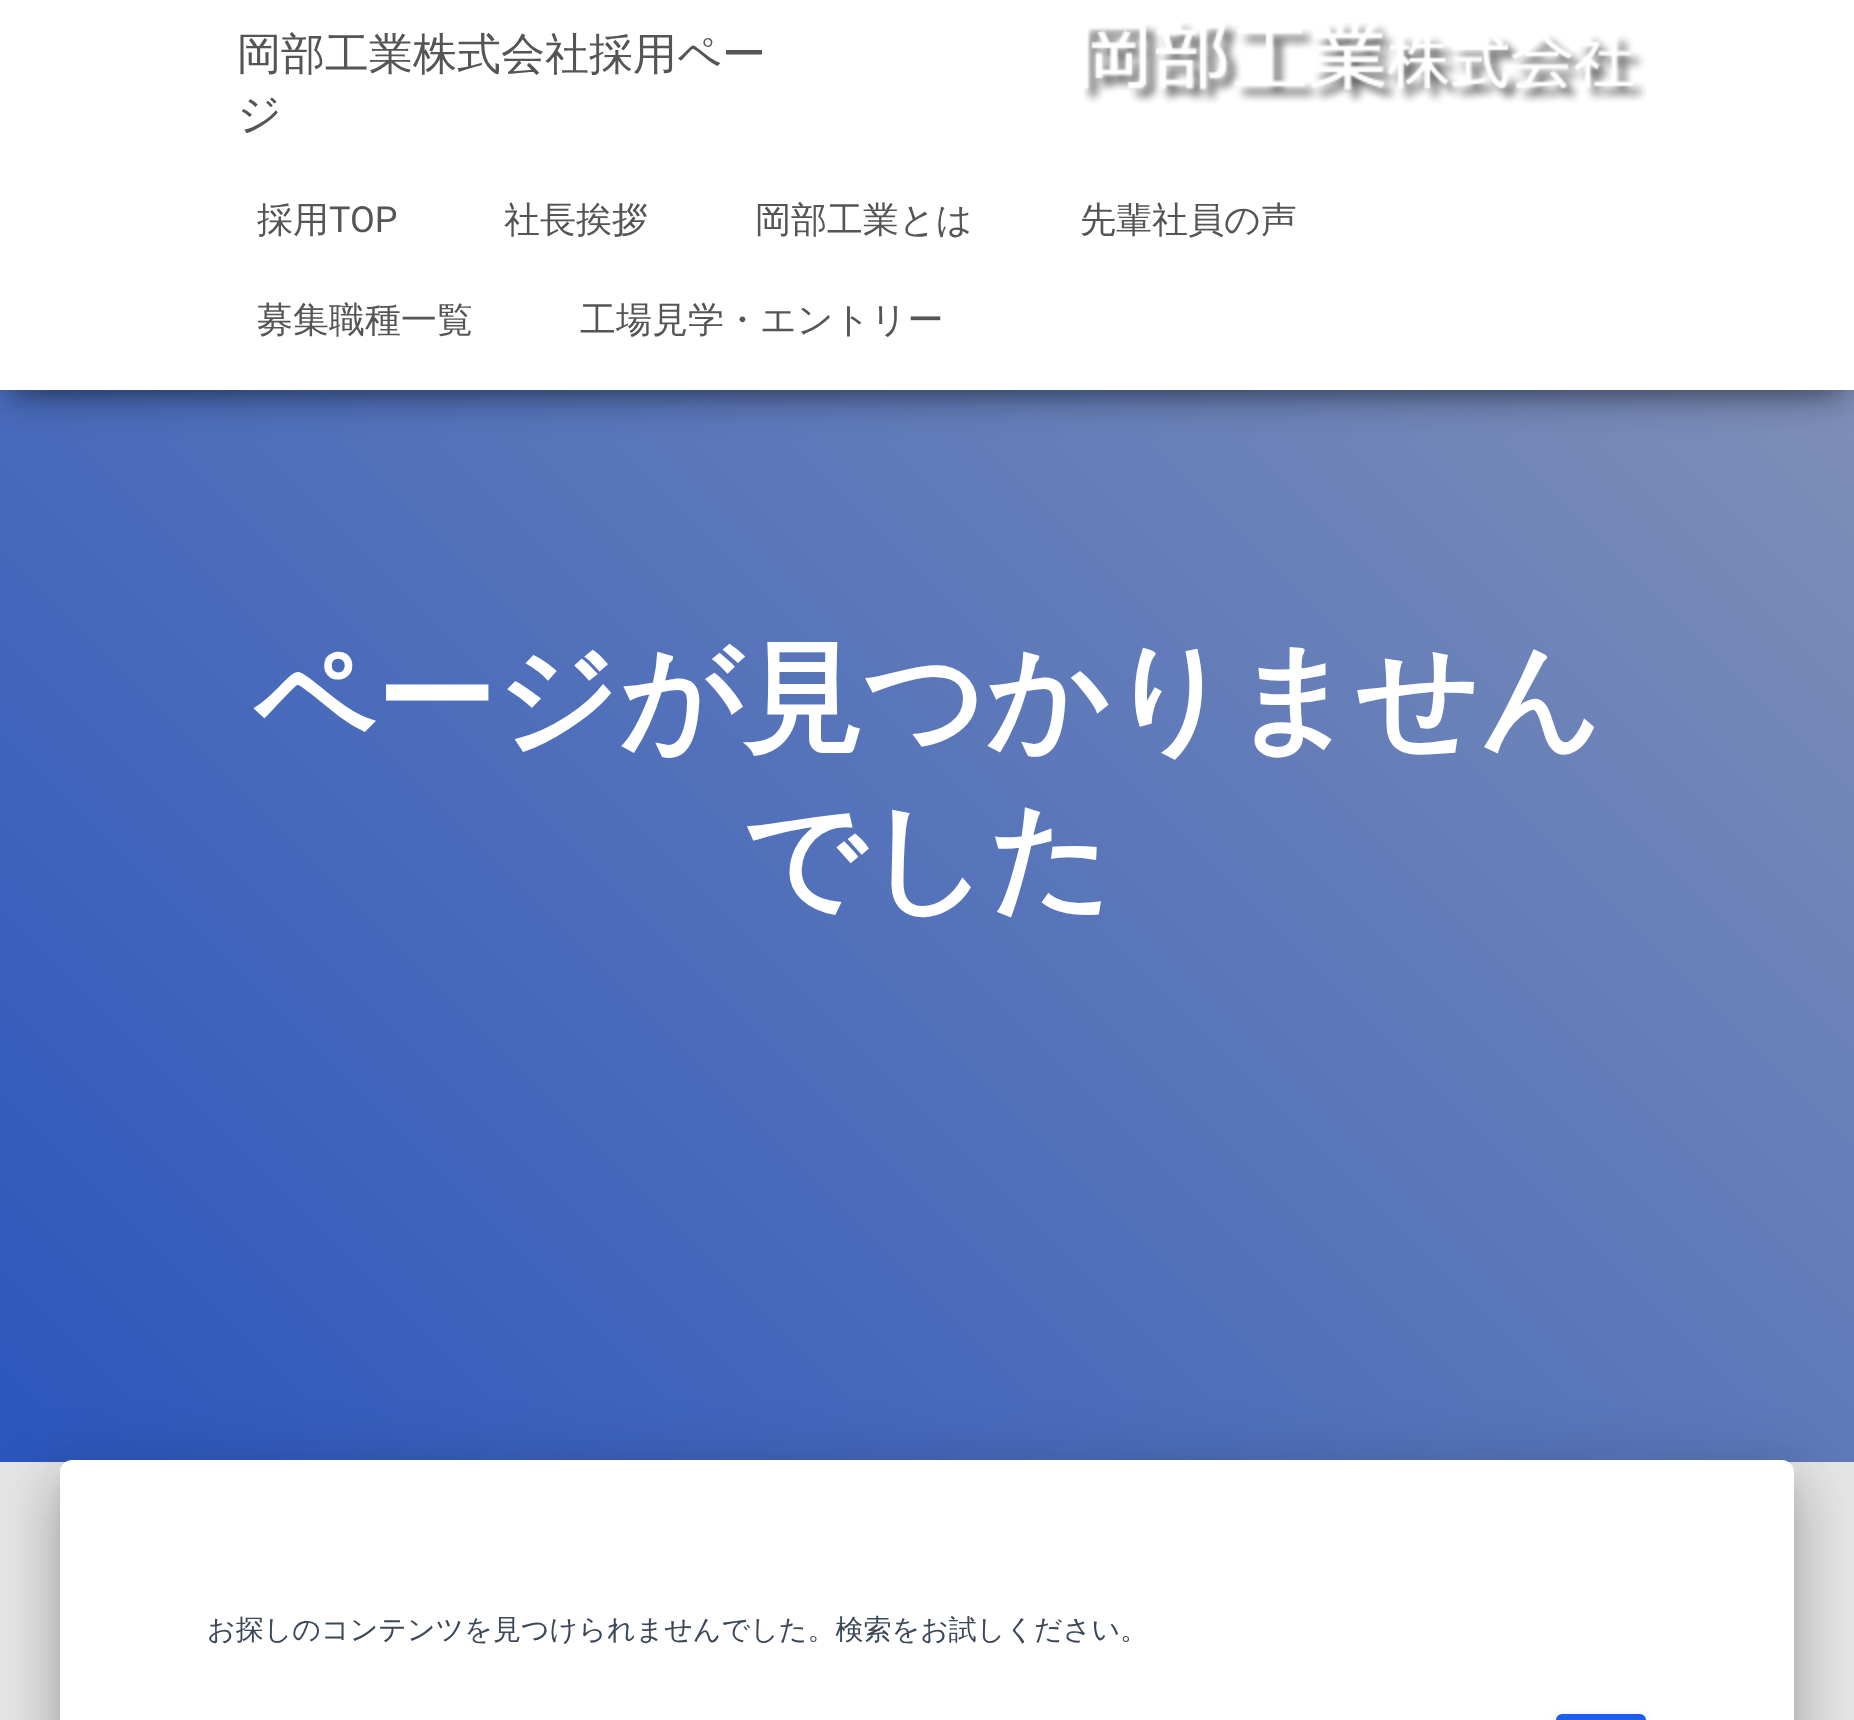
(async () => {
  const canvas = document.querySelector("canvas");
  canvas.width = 1854;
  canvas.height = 1720;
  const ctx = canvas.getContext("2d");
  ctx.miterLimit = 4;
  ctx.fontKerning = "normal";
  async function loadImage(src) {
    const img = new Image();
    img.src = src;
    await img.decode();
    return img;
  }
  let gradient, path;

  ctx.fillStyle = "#e5e5e5";
  ctx.fillRect(0, 0, 1854, 1720);
  gradient = ctx.createLinearGradient(138, 1600, 1716, 22);
  gradient.addColorStop(0, "#2b56bd");
  gradient.addColorStop(1, "#8493b7");
  ctx.fillStyle = gradient;
  ctx.fillRect(0, 390, 1854, 1072);
  ctx.fillStyle = "rgba(0, 0, 0, 0.2)";
  ctx.filter = "blur(10px)";
  ctx.beginPath();
  ctx.rect(10, 26, 1834, 370);
  ctx.fill();
  ctx.filter = "none";
  ctx.fillStyle = "rgba(0, 0, 0, 0.12)";
  ctx.filter = "blur(20px)";
  ctx.beginPath();
  ctx.rect(0, 6, 1854, 390);
  ctx.fill();
  ctx.filter = "none";
  ctx.fillStyle = "rgba(0, 0, 0, 0.42)";
  ctx.filter = "blur(20px)";
  ctx.beginPath();
  ctx.rect(24, 44, 1806, 342);
  ctx.fill();
  ctx.filter = "none";
  ctx.fillStyle = "#ffffff";
  ctx.fillRect(0, 0, 1854, 390);
  ctx.drawImage(await loadImage("img/1.png"), 1083, 22, 564, 82);
  ctx.fillStyle = "rgba(0, 0, 0, 0.2)";
  ctx.filter = "blur(10px)";
  ctx.beginPath();
  ctx.roundRect(70, 1486, 1714, 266, 2);
  ctx.fill();
  ctx.filter = "none";
  ctx.fillStyle = "rgba(0, 0, 0, 0.12)";
  ctx.filter = "blur(30px)";
  ctx.beginPath();
  ctx.roundRect(50, 1462, 1754, 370, 22);
  ctx.fill();
  ctx.filter = "none";
  ctx.fillStyle = "rgba(0, 0, 0, 0.14)";
  ctx.filter = "blur(24px)";
  ctx.beginPath();
  ctx.roundRect(56, 1488, 1742, 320, 16);
  ctx.fill();
  ctx.filter = "none";
  ctx.fillStyle = "#ffffff";
  path = new Path2D("M72 1460H1782C1788.5 1460 1794 1465.5 1794 1472V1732H60V1472C60 1465.5 65.5 1460 72 1460Z");
  ctx.fill(path);
  ctx.fillStyle = "rgba(30, 92, 237, 0.12)";
  ctx.filter = "blur(5px)";
  ctx.beginPath();
  ctx.roundRect(1556, 1716, 90, 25, 6);
  ctx.fill();
  ctx.filter = "none";
  ctx.fillStyle = "#1e5ced";
  ctx.beginPath();
  ctx.roundRect(1556, 1714, 90, 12, 6);
  ctx.fill();
  ctx.font = "500 44px WenQuanYi Zen Hei";
  ctx.fillStyle = "#555555";
  ctx.fillText("岡部工業株式会社採用ペー", 237, 69);
  ctx.fillText("ジ", 237, 129);
  ctx.font = "500 36px WenQuanYi Zen Hei";
  ctx.fillText("採用", 257, 232);
  ctx.font = "36px Roboto";
  ctx.fillText("TOP", 329, 232);
  ctx.font = "500 36px WenQuanYi Zen Hei";
  for (const [text, x, y] of [
    ["社長挨拶", 504, 232],
    ["岡部工業とは", 755, 232],
    ["先輩社員の声", 1080, 232],
    ["募集職種一覧", 257, 332],
    ["工場見学・エントリー", 580, 332],
  ]) {
    ctx.fillText(text, x, y);
  }
  ctx.font = "bold 120.4px WenQuanYi Zen Hei";
  ctx.fillStyle = "#ffffff";
  ctx.fillText("ページが見つかりません", 252, 740);
  ctx.fillText("でした", 742, 900);
  ctx.font = "500 28px WenQuanYi Zen Hei";
  ctx.fillStyle = "#3c4858";
  ctx.fillText("お探しのコンテンツを見つけられませんでした。検索をお試しください。", 207, 1639);
})();
